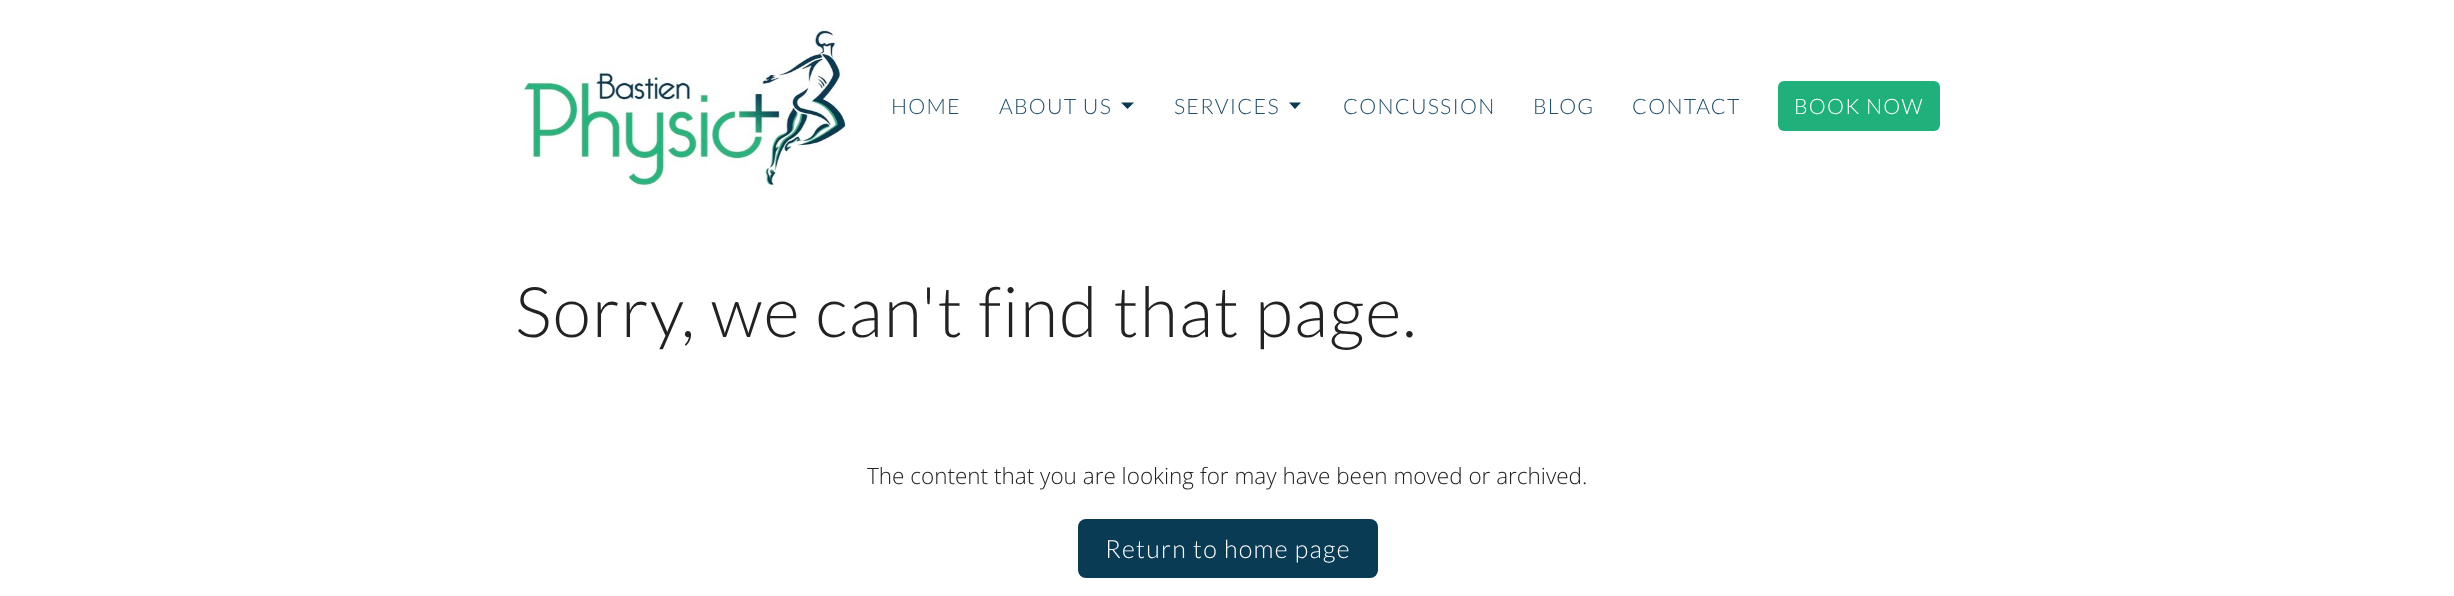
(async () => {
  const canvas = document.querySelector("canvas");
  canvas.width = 2454;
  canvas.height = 596;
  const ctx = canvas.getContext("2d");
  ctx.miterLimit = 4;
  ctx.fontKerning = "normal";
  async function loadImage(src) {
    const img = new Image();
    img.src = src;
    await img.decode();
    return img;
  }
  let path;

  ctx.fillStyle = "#ffffff";
  ctx.fillRect(0, 0, 2454, 596);
  ctx.drawImage(await loadImage("img/1.png"), 521, 29, 329, 158);
  ctx.fillStyle = "#0a3b55";
  path = new Path2D("M1121 102.5L1127.5 109L1134 102.5Z");
  ctx.fill(path);
  path = new Path2D("M1289 102.5L1295 109L1301 102.5Z");
  ctx.fill(path);
  ctx.fillStyle = "#20b07b";
  ctx.beginPath();
  ctx.roundRect(1778, 81, 162, 50, 6);
  ctx.fill();
  ctx.fillStyle = "#0a3b55";
  ctx.beginPath();
  ctx.roundRect(1078, 519, 300, 59, 8);
  ctx.fill();
  ctx.letterSpacing = "1.25px";
  ctx.font = "300 21.25px Lato";
  ctx.fillStyle = "#234f66";
  for (const [text, x, y] of [
    ["HOME", 891, 114],
    ["ABOUT US", 999, 114],
    ["SERVICES", 1174, 114],
    ["CONCUSSION", 1343, 114],
    ["BLOG", 1533, 114],
    ["CONTACT", 1632, 114],
  ]) {
    ctx.fillText(text, x, y);
  }
  ctx.fillStyle = "#ffffff";
  ctx.fillText("BOOK NOW", 1794, 114);
  ctx.font = "300 70px Lato";
  ctx.fillStyle = "#222222";
  ctx.fillText("Sorry, we can't find that page.", 515, 337);
  ctx.letterSpacing = "0px";
  ctx.font = "300 22.5px Open Sans";
  ctx.fillText("The content that you are looking for may have been moved or archived.", 867, 484);
  ctx.letterSpacing = "1.25px";
  ctx.font = "300 25px Lato";
  ctx.fillStyle = "#ffffff";
  ctx.fillText("Return to home page", 1105, 558);
})();
